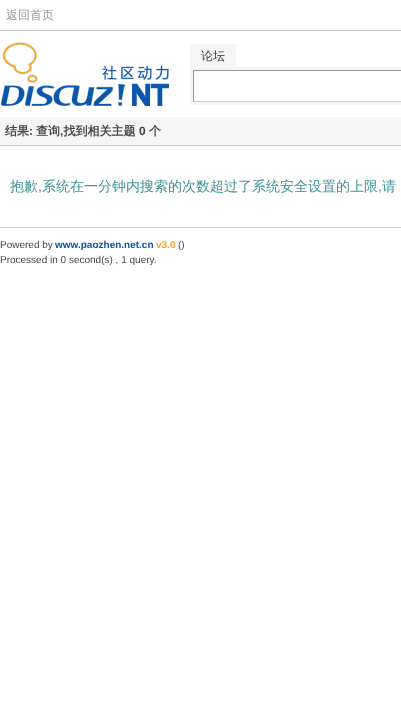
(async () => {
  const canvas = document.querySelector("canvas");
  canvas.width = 401;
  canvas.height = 723;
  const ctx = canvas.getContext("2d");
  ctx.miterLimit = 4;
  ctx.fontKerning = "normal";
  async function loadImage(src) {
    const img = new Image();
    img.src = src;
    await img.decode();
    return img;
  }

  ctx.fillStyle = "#ffffff";
  ctx.fillRect(0, 0, 401, 723);
  ctx.fillStyle = "#cdcdcd";
  ctx.fillRect(0, 30, 401, 1);
  ctx.drawImage(await loadImage("img/1.png"), 1, 42, 168, 64);
  for (const [x, y, w, h, color] of [
    [190, 44, 46, 23, "#f5f5f5"],
    [190, 67, 211, 38, "#f5f5f5"],
    [194, 71, 207, 30, "#ffffff"],
    [193, 70, 208, 1, "#999999"],
    [193, 101, 208, 1, "#cccccc"],
    [193, 70, 1, 32, "#999999"],
    [0, 117, 401, 28, "#f5f5f5"],
    [0, 145, 401, 1, "#cccccc"],
    [0, 227, 401, 1, "#cdcdcd"],
  ]) {
    ctx.fillStyle = color;
    ctx.fillRect(x, y, w, h);
  }
  ctx.font = "500 12px WenQuanYi Zen Hei";
  ctx.fillStyle = "#999999";
  ctx.fillText("返回首页", 6, 19);
  ctx.fillStyle = "#333333";
  ctx.fillText("论坛", 201, 60);
  ctx.font = "bold 12px WenQuanYi Zen Hei";
  ctx.fillStyle = "#444444";
  ctx.fillText("结果", 5, 135);
  ctx.font = "bold 12px Liberation Sans";
  ctx.fillText(":", 29, 135);
  ctx.font = "bold 12px WenQuanYi Zen Hei";
  ctx.fillText("查询 找到相关主题", 36, 135);
  ctx.font = "bold 12px Liberation Sans";
  ctx.fillText("0", 139, 135);
  ctx.font = "bold 12px WenQuanYi Zen Hei";
  ctx.fillText("个", 149, 135);
  ctx.font = "bold 12px Liberation Sans";
  ctx.fillText(",", 60, 135);
  ctx.font = "500 14px WenQuanYi Zen Hei";
  ctx.fillStyle = "#429296";
  ctx.fillText("抱歉", 10, 191);
  ctx.font = "14px Liberation Sans";
  ctx.fillText(",", 38, 191);
  ctx.font = "500 14px WenQuanYi Zen Hei";
  ctx.fillText("系统在一分钟内搜索的次数超过了系统安全设置的上限", 42, 191);
  ctx.font = "14px Liberation Sans";
  ctx.fillText(",", 378, 191);
  ctx.font = "500 14px WenQuanYi Zen Hei";
  ctx.fillText("请", 382, 191);
  ctx.font = "10px Liberation Sans";
  ctx.fillStyle = "#444444";
  ctx.fillText("Powered by", 0, 248);
  ctx.font = "bold 10px Liberation Sans";
  ctx.fillStyle = "#0954a6";
  ctx.fillText("www.paozhen.net.cn", 55, 248);
  ctx.fillStyle = "#ff9d25";
  ctx.fillText("v3.0", 156, 248);
  ctx.font = "10px Liberation Sans";
  ctx.fillStyle = "#444444";
  ctx.fillText("()", 178, 248);
  ctx.fillText("Processed in 0 second(s) , 1 query.", 0, 263);
})();
